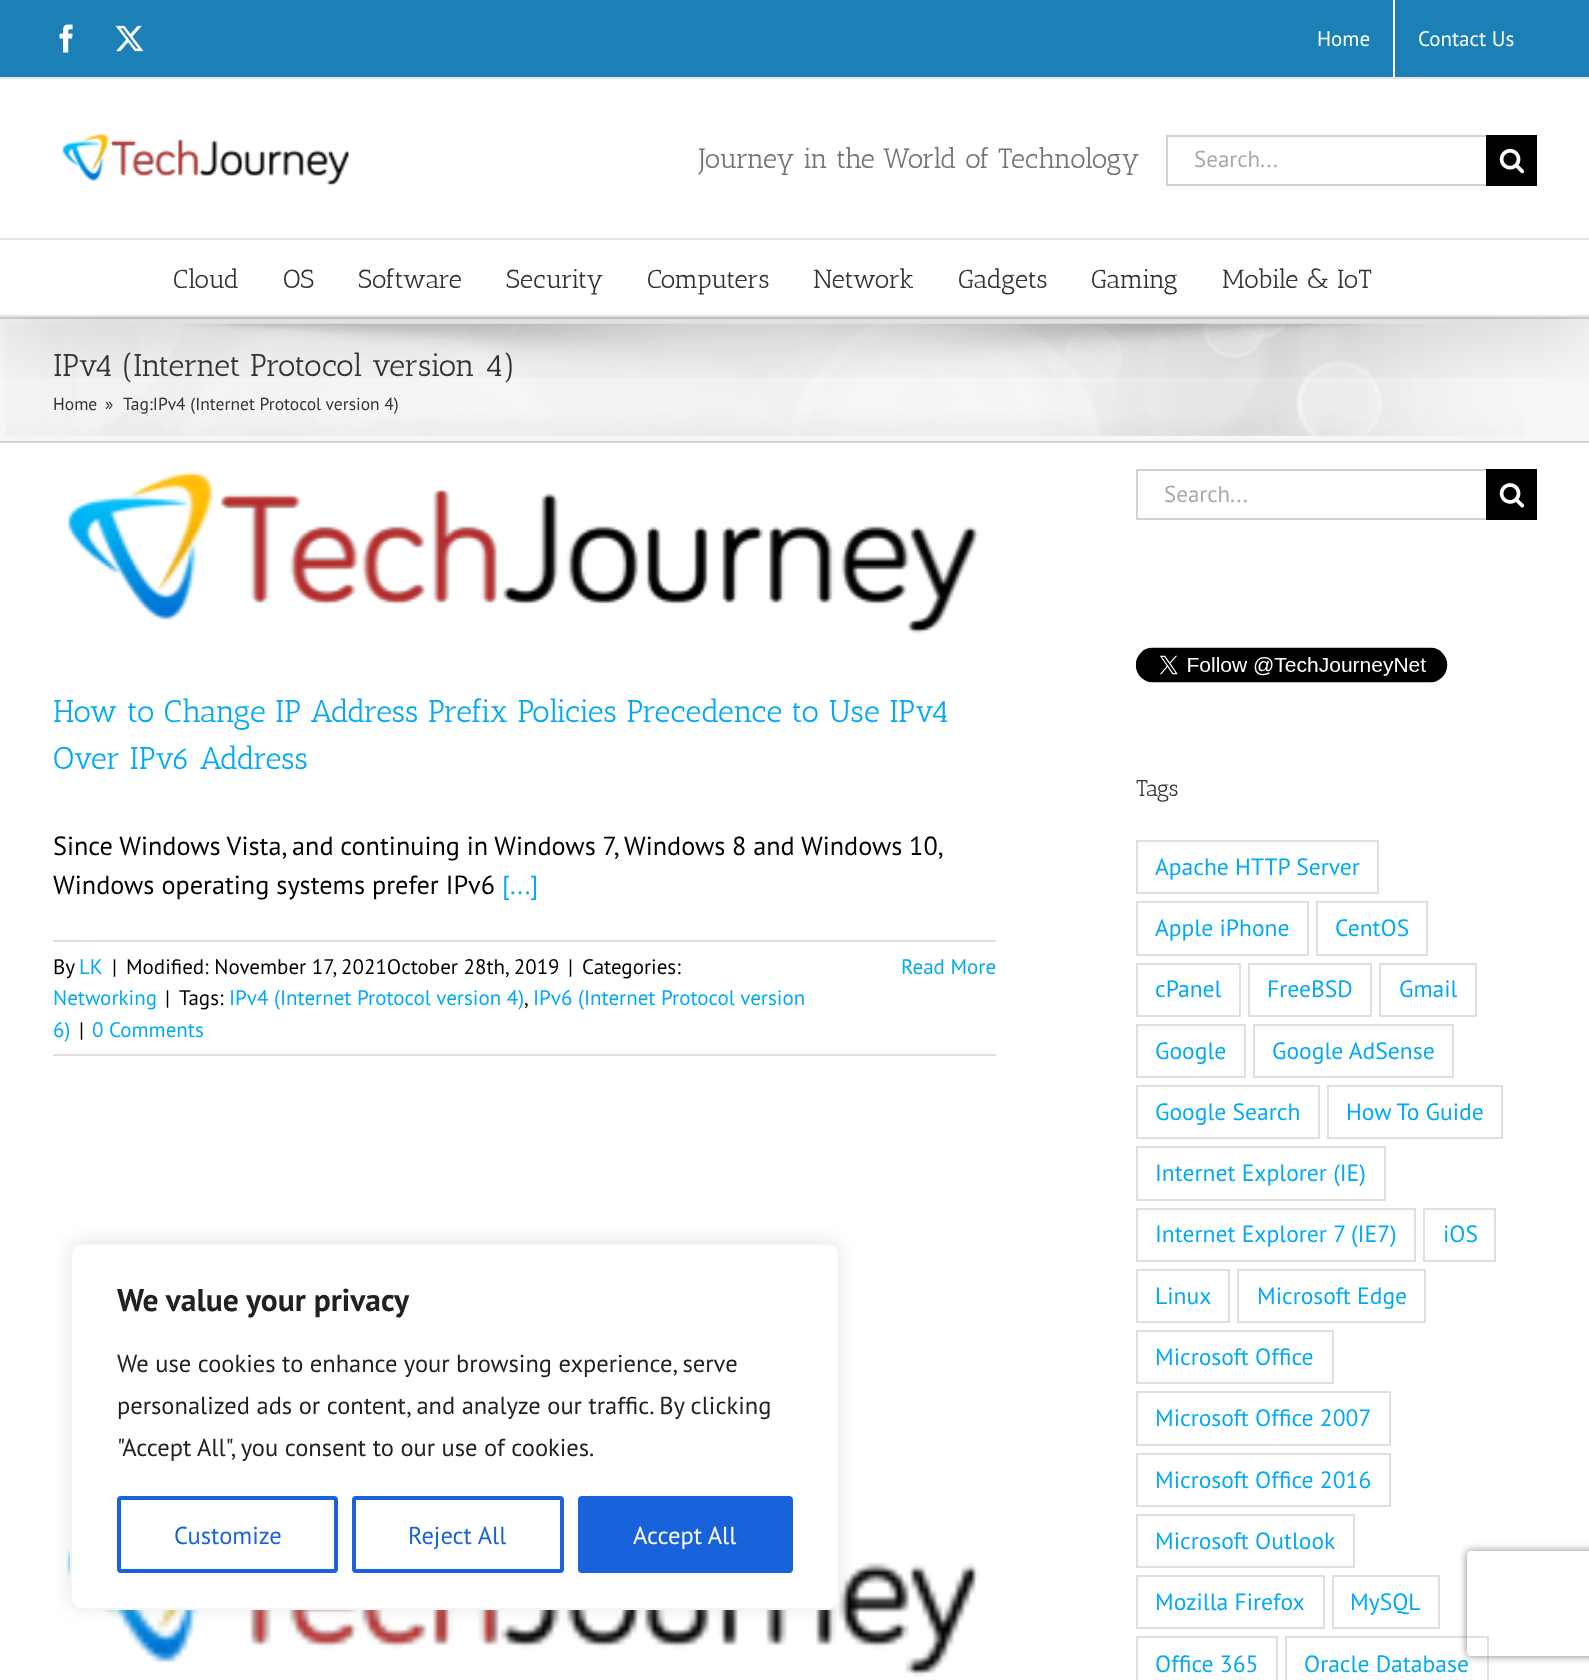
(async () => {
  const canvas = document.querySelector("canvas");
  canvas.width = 1589;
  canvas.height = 1680;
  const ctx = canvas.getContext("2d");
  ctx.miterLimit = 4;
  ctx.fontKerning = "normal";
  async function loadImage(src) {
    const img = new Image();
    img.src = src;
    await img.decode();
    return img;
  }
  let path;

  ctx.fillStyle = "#ffffff";
  ctx.fillRect(0, 0, 1589, 1680);
  ctx.fillStyle = "#f6f6f6";
  ctx.fillRect(0, 319, 1589, 122);
  ctx.drawImage(await loadImage("img/5.png"), 5, 323, 1519, 113);
  ctx.fillStyle = "#d2d3d4";
  ctx.fillRect(0, 317, 1589, 2);
  ctx.fillRect(0, 441, 1589, 2);
  ctx.save();
  ctx.beginPath();
  ctx.rect(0, 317, 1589, 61);
  ctx.clip();
  ctx.fillStyle = "rgba(0, 0, 0, 0.14)";
  ctx.filter = "blur(44px)";
  ctx.beginPath();
  ctx.rect(4, 21, 1582, 310);
  ctx.fill();
  ctx.filter = "none";
  ctx.restore();
  ctx.fillStyle = "#1a80b6";
  ctx.fillRect(0, 0, 1589, 77);
  ctx.fillStyle = "#e5e5e5";
  ctx.fillRect(0, 77, 1589, 2);
  ctx.drawImage(await loadImage("img/1.png"), 59, 24, 14, 29);
  ctx.drawImage(await loadImage("img/2.png"), 115, 25, 29, 27);
  ctx.fillStyle = "#ffffff";
  ctx.fillRect(1393, 0, 2, 77);
  ctx.fillStyle = "#e5e5e5";
  ctx.fillRect(0, 238, 1589, 2);
  ctx.drawImage(await loadImage("img/3.png"), 62, 133, 288, 53);
  for (const [x, y, w, h, color] of [
    [1166, 135, 320, 2, "#d2d2d2"],
    [1166, 184, 320, 2, "#d2d2d2"],
    [1166, 135, 2, 51, "#d2d2d2"],
    [1486, 135, 51, 51, "#000000"],
  ]) {
    ctx.fillStyle = color;
    ctx.fillRect(x, y, w, h);
  }
  ctx.drawImage(await loadImage("img/4.png"), 1499, 148, 26, 26);
  ctx.fillStyle = "#e5e5e5";
  ctx.fillRect(0, 315, 1589, 2);
  ctx.drawImage(await loadImage("img/6.png"), 67, 471, 912, 163);
  ctx.fillStyle = "#e0dede";
  ctx.fillRect(53, 940, 943, 2);
  ctx.fillRect(53, 1054, 943, 2);
  ctx.drawImage(await loadImage("img/7.png"), 66, 1547, 914, 130);
  for (const [x, y, w, h, color] of [
    [1136, 469, 350, 2, "#d2d2d2"],
    [1136, 518, 350, 2, "#d2d2d2"],
    [1136, 469, 2, 51, "#d2d2d2"],
    [1486, 469, 51, 51, "#000000"],
  ]) {
    ctx.fillStyle = color;
    ctx.fillRect(x, y, w, h);
  }
  ctx.drawImage(await loadImage("img/8.png"), 1499, 483, 26, 25);
  ctx.drawImage(await loadImage("img/9.png"), 1135, 647, 313, 36);
  ctx.strokeStyle = "#e0dede";
  ctx.lineWidth = 2;
  ctx.strokeRect(1137, 841, 241, 52);
  ctx.strokeRect(1137, 902, 171, 53);
  ctx.strokeRect(1317, 902, 110, 53);
  ctx.strokeRect(1137, 964, 103, 52);
  ctx.strokeRect(1249, 964, 122, 52);
  ctx.strokeRect(1380, 964, 96, 52);
  ctx.strokeRect(1137, 1025, 108, 52);
  ctx.strokeRect(1254, 1025, 199, 52);
  ctx.strokeRect(1137, 1086, 182, 52);
  ctx.strokeRect(1328, 1086, 174, 52);
  ctx.strokeRect(1137, 1147, 248, 53);
  ctx.strokeRect(1137, 1209, 278, 52);
  ctx.strokeRect(1424, 1209, 71, 52);
  ctx.strokeRect(1137, 1270, 92, 52);
  ctx.strokeRect(1238, 1270, 187, 52);
  ctx.strokeRect(1137, 1331, 196, 52);
  ctx.strokeRect(1137, 1392, 253, 53);
  ctx.strokeRect(1137, 1454, 253, 52);
  ctx.strokeRect(1137, 1515, 217, 52);
  ctx.strokeRect(1137, 1576, 187, 52);
  ctx.strokeRect(1333, 1576, 106, 52);
  ctx.strokeRect(1137, 1637, 140, 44);
  ctx.strokeRect(1286, 1637, 202, 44);
  ctx.fillStyle = "rgba(172, 171, 171, 0.3)";
  ctx.filter = "blur(9px)";
  ctx.beginPath();
  ctx.roundRect(70, 1241, 770, 367, 11);
  ctx.fill();
  ctx.filter = "none";
  ctx.fillStyle = "#ffffff";
  ctx.beginPath();
  ctx.roundRect(71, 1244, 768, 365, 10);
  ctx.fill();
  ctx.strokeStyle = "#f4f4f4";
  ctx.stroke();
  ctx.beginPath();
  ctx.roundRect(119, 1498, 217, 73, 2);
  ctx.strokeStyle = "#1863dc";
  ctx.lineWidth = 4;
  ctx.stroke();
  ctx.beginPath();
  ctx.roundRect(354, 1498, 208, 73, 2);
  ctx.stroke();
  ctx.fillStyle = "#1863dc";
  ctx.beginPath();
  ctx.roundRect(580, 1498, 211, 73, 2);
  ctx.fill();
  ctx.stroke();
  ctx.save();
  path = new Path2D("M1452 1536H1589V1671H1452ZM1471 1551H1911C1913 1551 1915 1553 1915 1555V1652C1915 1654 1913 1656 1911 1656H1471C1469 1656 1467 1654 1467 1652V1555C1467 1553 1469 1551 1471 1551Z");
  ctx.clip(path, "evenodd");
  ctx.fillStyle = "#808080";
  ctx.filter = "blur(4.5px)";
  ctx.beginPath();
  ctx.roundRect(1467, 1551, 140, 105, 4);
  ctx.fill();
  ctx.filter = "none";
  ctx.restore();
  ctx.font = "21px PT Sans";
  ctx.fillStyle = "#ffffff";
  ctx.fillText("Home", 1317, 46);
  ctx.fillText("Contact Us", 1418, 46);
  ctx.font = "28px Antic Slab";
  ctx.fillStyle = "#747474";
  ctx.fillText("Journey in the World of Technology", 699, 168);
  ctx.font = "23px PT Sans";
  ctx.fillStyle = "#aaa9a9";
  ctx.fillText("Search...", 1194, 167);
  ctx.font = "26.25px Antic Slab";
  ctx.fillStyle = "#333333";
  ctx.fillText("Cloud", 173, 288);
  ctx.fillText("OS", 283, 288);
  ctx.save();
  ctx.beginPath();
  ctx.rect(359, 240, 147, 75);
  ctx.clip();
  ctx.fillText("Software", 358, 288);
  ctx.restore();
  for (const [text, x, y] of [
    ["Security", 506, 288],
    ["Computers", 647, 288],
    ["Network", 813, 288],
    ["Gadgets", 958, 288],
    ["Gaming", 1091, 288],
    ["Mobile & IoT", 1222, 288],
  ]) {
    ctx.fillText(text, x, y);
  }
  ctx.font = "31.5px Antic Slab";
  ctx.fillText("IPv4 (Internet Protocol version 4)", 53, 376);
  ctx.font = "17.5px PT Sans";
  for (const [text, x, y] of [
    ["Home", 53, 410],
    ["»", 105, 410],
    ["Tag:IPv4 (Internet Protocol version 4)", 123, 410],
  ]) {
    ctx.fillText(text, x, y);
  }
  ctx.font = "31.5px Antic Slab";
  ctx.fillStyle = "#03a9f4";
  ctx.fillText("How to Change IP Address Prefix Policies Precedence to Use IPv4", 53, 722);
  ctx.fillText("Over IPv6 Address", 53, 769);
  ctx.wordSpacing = "-0.25px";
  ctx.font = "26.25px PT Sans";
  ctx.fillStyle = "#000000";
  ctx.fillText("Since Windows Vista, and continuing in Windows 7, Windows 8 and Windows 10,", 53, 855);
  ctx.wordSpacing = "0px";
  ctx.fillText("Windows operating systems prefer IPv6", 53, 894);
  ctx.fillStyle = "#03a9f4";
  ctx.fillText("[...]", 502, 894);
  ctx.font = "21px PT Sans";
  ctx.fillStyle = "#000000";
  ctx.fillText("By", 53, 974);
  ctx.fillStyle = "#03a9f4";
  ctx.fillText("LK", 79, 974);
  ctx.fillStyle = "#000000";
  for (const [text, x, y] of [
    ["|", 112, 974],
    ["Modified: November 17, 2021October 28th, 2019", 126, 974],
    ["|", 568, 974],
    ["Categories:", 582, 974],
  ]) {
    ctx.fillText(text, x, y);
  }
  ctx.fillStyle = "#03a9f4";
  ctx.fillText("Networking", 53, 1005);
  ctx.fillStyle = "#000000";
  ctx.fillText("|", 165, 1005);
  ctx.fillText("Tags:", 179, 1005);
  ctx.fillStyle = "#03a9f4";
  ctx.fillText("IPv4 (Internet Protocol version 4)", 229, 1005);
  ctx.fillStyle = "#000000";
  ctx.fillText(",", 524, 1005);
  ctx.fillStyle = "#03a9f4";
  ctx.fillText("IPv6 (Internet Protocol version", 533, 1005);
  ctx.fillText("6)", 53, 1037);
  ctx.fillStyle = "#000000";
  ctx.fillText("|", 79, 1037);
  ctx.fillStyle = "#03a9f4";
  ctx.fillText("0 Comments", 92, 1037);
  ctx.fillText("Read More", 901, 974);
  ctx.font = "23px PT Sans";
  ctx.fillStyle = "#aaa9a9";
  ctx.fillText("Search...", 1164, 502);
  ctx.font = "23px Antic Slab";
  ctx.fillStyle = "#333333";
  ctx.fillText("Tags", 1136, 796);
  ctx.font = "23.6px PT Sans";
  ctx.fillStyle = "#03a9f4";
  for (const [text, x, y] of [
    ["Apache HTTP Server", 1155, 875],
    ["Apple iPhone", 1155, 936],
    ["CentOS", 1335, 936],
    ["cPanel", 1155, 997],
    ["FreeBSD", 1267, 997],
    ["Gmail", 1399, 997],
    ["Google", 1155, 1059],
    ["Google AdSense", 1272, 1059],
    ["Google Search", 1155, 1120],
    ["How To Guide", 1346, 1120],
    ["Internet Explorer (IE)", 1155, 1181],
    ["Internet Explorer 7 (IE7)", 1155, 1242],
    ["iOS", 1443, 1242],
    ["Linux", 1155, 1304],
    ["Microsoft Edge", 1257, 1304],
    ["Microsoft Office", 1155, 1365],
    ["Microsoft Office 2007", 1155, 1426],
    ["Microsoft Office 2016", 1155, 1488],
    ["Microsoft Outlook", 1155, 1549],
    ["Mozilla Firefox", 1155, 1610],
    ["MySQL", 1350, 1610],
    ["Office 365", 1155, 1672],
    ["Oracle Database", 1304, 1672],
  ]) {
    ctx.fillText(text, x, y);
  }
  ctx.font = "bold 31.5px PT Sans";
  ctx.fillStyle = "#212121";
  ctx.fillText("We value your privacy", 117, 1311);
  ctx.font = "24.5px PT Sans";
  for (const [text, x, y] of [
    ["We use cookies to enhance your browsing experience, serve", 117, 1372],
    ["personalized ads or content, and analyze our traffic. By clicking", 117, 1414],
    ["\"Accept All\", you consent to our use of cookies.", 117, 1456],
  ]) {
    ctx.fillText(text, x, y);
  }
  ctx.fillStyle = "#1863dc";
  ctx.fillText("Customize", 174, 1544);
  ctx.fillText("Reject All", 408, 1544);
  ctx.fillStyle = "#ffffff";
  ctx.fillText("Accept All", 633, 1544);
})();
